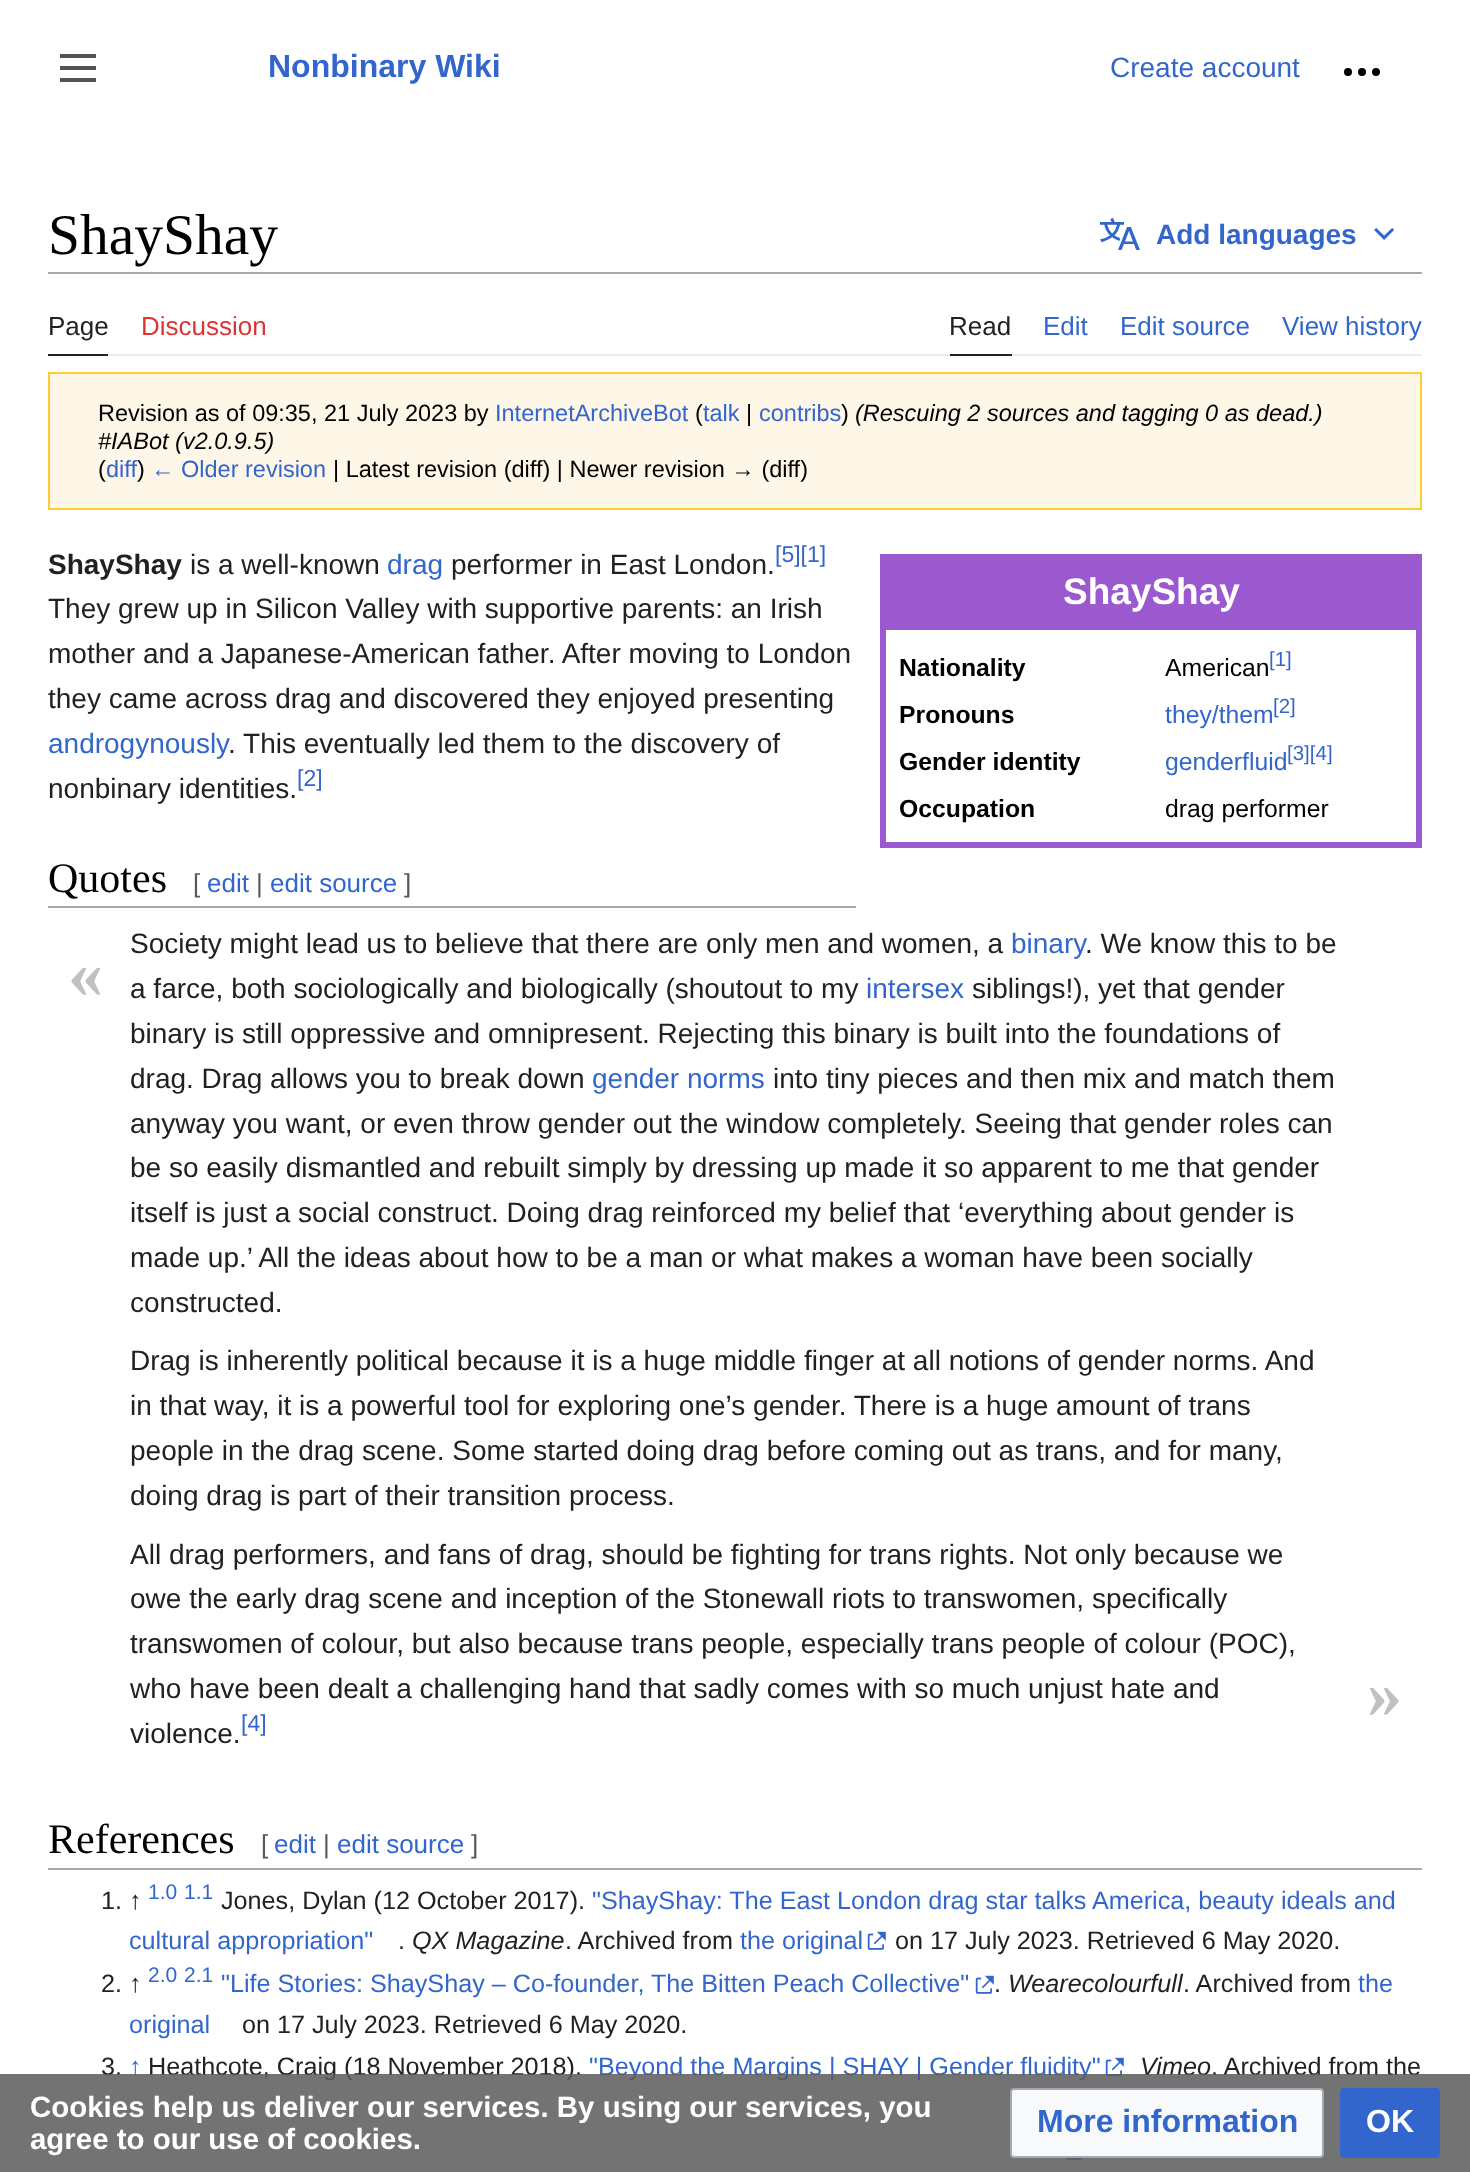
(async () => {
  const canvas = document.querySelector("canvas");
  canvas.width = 1470;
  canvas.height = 2172;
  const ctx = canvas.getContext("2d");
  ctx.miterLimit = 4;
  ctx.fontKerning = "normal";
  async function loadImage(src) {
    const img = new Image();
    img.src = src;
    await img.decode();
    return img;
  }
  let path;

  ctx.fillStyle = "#ffffff";
  ctx.fillRect(0, 0, 1470, 2172);
  ctx.fillStyle = "#545454";
  path = new Path2D("M60 54V58H96V54ZM60 70H96V66H60ZM60 82H96V78H60Z");
  ctx.fill(path);
  ctx.drawImage(await loadImage("img/1.png"), 1344, 68, 36, 8);
  ctx.fillStyle = "#a2a9b1";
  ctx.fillRect(48, 272, 1374, 2);
  ctx.drawImage(await loadImage("img/2.png"), 1100, 218, 40, 32);
  ctx.drawImage(await loadImage("img/3.png"), 1374, 228, 20, 12);
  for (const [x, y, w, h, color] of [
    [108, 354, 1314, 2, "#eaecf0"],
    [48, 354, 60, 2, "#202122"],
    [950, 354, 62, 2, "#202122"],
  ]) {
    ctx.fillStyle = color;
    ctx.fillRect(x, y, w, h);
  }
  ctx.fillStyle = "#fef6e7";
  ctx.beginPath();
  ctx.rect(49, 373, 1372, 136);
  ctx.fill();
  ctx.strokeStyle = "#ffcc33";
  ctx.lineWidth = 2;
  ctx.stroke();
  ctx.strokeStyle = "#9b59d0";
  ctx.lineWidth = 6;
  ctx.strokeRect(883, 557, 536, 288);
  for (const [x, y, w, h, color] of [
    [886, 560, 530, 70, "#9b59d0"],
    [48, 906, 808, 2, "#a2a9b1"],
    [48, 1868, 1374, 2, "#a2a9b1"],
  ]) {
    ctx.fillStyle = color;
    ctx.fillRect(x, y, w, h);
  }
  ctx.drawImage(await loadImage("img/4.png"), 867, 1931, 19, 19);
  ctx.drawImage(await loadImage("img/4.png"), 975, 1975, 19, 19);
  ctx.drawImage(await loadImage("img/4.png"), 1105, 2057, 19, 19);
  ctx.drawImage(await loadImage("img/5.png"), 1065, 2158, 17, 2);
  ctx.font = "bold 32px Liberation Sans";
  ctx.fillStyle = "#3366cc";
  ctx.fillText("Nonbinary Wiki", 268, 77);
  ctx.font = "28px Liberation Sans";
  ctx.fillText("Create account", 1110, 77);
  ctx.font = "57.5px Liberation Serif";
  ctx.fillStyle = "#000000";
  ctx.fillText("ShayShay", 48, 254);
  ctx.font = "bold 28px Liberation Sans";
  ctx.fillStyle = "#3366cc";
  ctx.fillText("Add languages", 1156, 244);
  ctx.font = "26px Liberation Sans";
  ctx.fillStyle = "#202122";
  ctx.fillText("Page", 48, 335);
  ctx.fillStyle = "#dd3333";
  ctx.fillText("Discussion", 141, 335);
  ctx.fillStyle = "#202122";
  ctx.fillText("Read", 949, 335);
  ctx.fillStyle = "#3366cc";
  for (const [text, x, y] of [
    ["Edit", 1043, 335],
    ["Edit source", 1120, 335],
    ["View history", 1282, 335],
  ]) {
    ctx.fillText(text, x, y);
  }
  ctx.font = "23.5px Liberation Sans";
  ctx.fillStyle = "#000000";
  ctx.fillText("Revision as of 09:35, 21 July 2023 by", 98, 421);
  ctx.fillStyle = "#3366cc";
  ctx.fillText("InternetArchiveBot", 495, 421);
  ctx.fillStyle = "#000000";
  ctx.fillText("(", 695, 421);
  ctx.fillStyle = "#3366cc";
  ctx.fillText("talk", 703, 421);
  ctx.fillStyle = "#000000";
  ctx.fillText("|", 746, 421);
  ctx.fillStyle = "#3366cc";
  ctx.fillText("contribs", 759, 421);
  ctx.fillStyle = "#000000";
  ctx.fillText(")", 841, 421);
  ctx.font = "italic 23.5px Liberation Sans";
  ctx.fillText("(Rescuing 2 sources and tagging 0 as dead.)", 855, 421);
  ctx.fillText("#IABot (v2.0.9.5)", 98, 449);
  ctx.font = "23.5px Liberation Sans";
  ctx.fillText("(", 98, 477);
  ctx.fillStyle = "#3366cc";
  ctx.fillText("diff", 106, 477);
  ctx.fillStyle = "#000000";
  ctx.fillText(")", 137, 477);
  ctx.fillStyle = "#3366cc";
  ctx.fillText("← Older revision", 151, 477);
  ctx.fillStyle = "#000000";
  ctx.fillText("| Latest revision (diff) | Newer revision → (diff)", 333, 477);
  ctx.font = "bold 28px Liberation Sans";
  ctx.fillStyle = "#202122";
  ctx.fillText("ShayShay", 48, 574);
  ctx.font = "28px Liberation Sans";
  ctx.fillText("is a well-known", 190, 574);
  ctx.fillStyle = "#3366cc";
  ctx.fillText("drag", 387, 574);
  ctx.fillStyle = "#202122";
  ctx.fillText("performer in East London.", 451, 574);
  ctx.font = "23px Liberation Sans";
  ctx.fillStyle = "#3366cc";
  ctx.fillText("[5][1]", 775, 562);
  ctx.font = "28px Liberation Sans";
  ctx.fillStyle = "#202122";
  for (const [text, x, y] of [
    ["They grew up in Silicon Valley with supportive parents: an Irish", 48, 618],
    ["mother and a Japanese-American father. After moving to London", 48, 663],
    ["they came across drag and discovered they enjoyed presenting", 48, 708],
  ]) {
    ctx.fillText(text, x, y);
  }
  ctx.fillStyle = "#3366cc";
  ctx.fillText("androgynously", 48, 753);
  ctx.fillStyle = "#202122";
  ctx.fillText(". This eventually led them to the discovery of", 228, 753);
  ctx.fillText("nonbinary identities.", 48, 798);
  ctx.font = "23px Liberation Sans";
  ctx.fillStyle = "#3366cc";
  ctx.fillText("[2]", 297, 786);
  ctx.font = "bold 37px Liberation Sans";
  ctx.fillStyle = "#ffffff";
  ctx.fillText("ShayShay", 1063, 604);
  ctx.font = "bold 24.75px Liberation Sans";
  ctx.fillStyle = "#000000";
  ctx.fillText("Nationality", 899, 676);
  ctx.font = "24.75px Liberation Sans";
  ctx.fillText("American", 1165, 676);
  ctx.font = "20.5px Liberation Sans";
  ctx.fillStyle = "#3366cc";
  ctx.fillText("[1]", 1269, 666);
  ctx.font = "bold 24.75px Liberation Sans";
  ctx.fillStyle = "#000000";
  ctx.fillText("Pronouns", 899, 723);
  ctx.font = "24.75px Liberation Sans";
  ctx.fillStyle = "#3366cc";
  ctx.fillText("they/them", 1165, 723);
  ctx.font = "20.5px Liberation Sans";
  ctx.fillText("[2]", 1273, 713);
  ctx.font = "bold 24.75px Liberation Sans";
  ctx.fillStyle = "#000000";
  ctx.fillText("Gender identity", 899, 770);
  ctx.font = "24.75px Liberation Sans";
  ctx.fillStyle = "#3366cc";
  ctx.fillText("genderfluid", 1165, 770);
  ctx.font = "20.5px Liberation Sans";
  ctx.fillText("[3][4]", 1287, 760);
  ctx.font = "bold 24.75px Liberation Sans";
  ctx.fillStyle = "#000000";
  ctx.fillText("Occupation", 899, 817);
  ctx.font = "24.75px Liberation Sans";
  ctx.fillText("drag performer", 1165, 817);
  ctx.font = "42px Liberation Serif";
  ctx.fillText("Quotes", 48, 892);
  ctx.font = "26px Liberation Sans";
  ctx.fillStyle = "#54595d";
  ctx.fillText("[", 193, 892);
  ctx.fillStyle = "#3366cc";
  ctx.fillText("edit", 207, 892);
  ctx.fillStyle = "#54595d";
  ctx.fillText("|", 256, 892);
  ctx.fillStyle = "#3366cc";
  ctx.fillText("edit source", 270, 892);
  ctx.fillStyle = "#54595d";
  ctx.fillText("]", 404, 892);
  ctx.font = "bold 70px Liberation Serif";
  ctx.fillStyle = "#c0c0c0";
  ctx.fillText("«", 68, 997);
  ctx.font = "28px Liberation Sans";
  ctx.fillStyle = "#202122";
  ctx.fillText("Society might lead us to believe that there are only men and women, a", 130, 953);
  ctx.fillStyle = "#3366cc";
  ctx.fillText("binary", 1011, 953);
  ctx.fillStyle = "#202122";
  ctx.fillText(". We know this to be", 1085, 953);
  ctx.fillText("a farce, both sociologically and biologically (shoutout to my", 130, 998);
  ctx.fillStyle = "#3366cc";
  ctx.fillText("intersex", 866, 998);
  ctx.fillStyle = "#202122";
  for (const [text, x, y] of [
    ["siblings!), yet that gender", 972, 998],
    ["binary is still oppressive and omnipresent. Rejecting this binary is built into the foundations of", 130, 1043],
    ["drag. Drag allows you to break down", 130, 1088],
  ]) {
    ctx.fillText(text, x, y);
  }
  ctx.fillStyle = "#3366cc";
  ctx.fillText("gender norms", 592, 1088);
  ctx.fillStyle = "#202122";
  for (const [text, x, y] of [
    ["into tiny pieces and then mix and match them", 773, 1088],
    ["anyway you want, or even throw gender out the window completely. Seeing that gender roles can", 130, 1133],
    ["be so easily dismantled and rebuilt simply by dressing up made it so apparent to me that gender", 130, 1177],
    ["itself is just a social construct. Doing drag reinforced my belief that ‘everything about gender is", 130, 1222],
    ["made up.’ All the ideas about how to be a man or what makes a woman have been socially", 130, 1267],
    ["constructed.", 130, 1312],
    ["Drag is inherently political because it is a huge middle finger at all notions of gender norms. And", 130, 1370],
    ["in that way, it is a powerful tool for exploring one’s gender. There is a huge amount of trans", 130, 1415],
    ["people in the drag scene. Some started doing drag before coming out as trans, and for many,", 130, 1460],
    ["doing drag is part of their transition process.", 130, 1505],
    ["All drag performers, and fans of drag, should be fighting for trans rights. Not only because we", 130, 1564],
    ["owe the early drag scene and inception of the Stonewall riots to transwomen, specifically", 130, 1608],
    ["transwomen of colour, but also because trans people, especially trans people of colour (POC),", 130, 1653],
    ["who have been dealt a challenging hand that sadly comes with so much unjust hate and", 130, 1698],
    ["violence.", 130, 1743],
  ]) {
    ctx.fillText(text, x, y);
  }
  ctx.font = "23px Liberation Sans";
  ctx.fillStyle = "#3366cc";
  ctx.fillText("[4]", 241, 1731);
  ctx.font = "bold 70px Liberation Serif";
  ctx.fillStyle = "#c0c0c0";
  ctx.fillText("»", 1367, 1717);
  ctx.font = "42px Liberation Serif";
  ctx.fillStyle = "#000000";
  ctx.fillText("References", 48, 1853);
  ctx.font = "26px Liberation Sans";
  ctx.fillStyle = "#54595d";
  ctx.fillText("[", 261, 1853);
  ctx.fillStyle = "#3366cc";
  ctx.fillText("edit", 274, 1853);
  ctx.fillStyle = "#54595d";
  ctx.fillText("|", 323, 1853);
  ctx.fillStyle = "#3366cc";
  ctx.fillText("edit source", 337, 1853);
  ctx.fillStyle = "#54595d";
  ctx.fillText("]", 471, 1853);
  ctx.font = "25.2px Liberation Sans";
  ctx.fillStyle = "#202122";
  ctx.fillText("1. ↑", 101, 1909);
  ctx.font = "21px Liberation Sans";
  ctx.fillStyle = "#3366cc";
  ctx.fillText("1.0", 148, 1899);
  ctx.fillText("1.1", 184, 1899);
  ctx.font = "25.2px Liberation Sans";
  ctx.fillStyle = "#202122";
  ctx.fillText("Jones, Dylan (12 October 2017).", 221, 1909);
  ctx.fillStyle = "#3366cc";
  ctx.fillText("\"ShayShay: The East London drag star talks America, beauty ideals and", 592, 1909);
  ctx.fillText("cultural appropriation\"", 129, 1949);
  ctx.fillStyle = "#202122";
  ctx.fillText(".", 398, 1949);
  ctx.font = "italic 25.2px Liberation Sans";
  ctx.fillText("QX Magazine", 412, 1949);
  ctx.font = "25.2px Liberation Sans";
  ctx.fillText(". Archived from", 565, 1949);
  ctx.fillStyle = "#3366cc";
  ctx.fillText("the original", 740, 1949);
  ctx.fillStyle = "#202122";
  ctx.fillText("on 17 July 2023. Retrieved 6 May 2020.", 895, 1949);
  ctx.fillText("2. ↑", 101, 1992);
  ctx.font = "21px Liberation Sans";
  ctx.fillStyle = "#3366cc";
  ctx.fillText("2.0", 148, 1982);
  ctx.fillText("2.1", 184, 1982);
  ctx.font = "25.2px Liberation Sans";
  ctx.fillText("\"Life Stories: ShayShay – Co-founder, The Bitten Peach Collective\"", 221, 1992);
  ctx.fillStyle = "#202122";
  ctx.fillText(".", 994, 1992);
  ctx.font = "italic 25.2px Liberation Sans";
  ctx.fillText("Wearecolourfull", 1008, 1992);
  ctx.font = "25.2px Liberation Sans";
  ctx.fillText(". Archived from", 1183, 1992);
  ctx.fillStyle = "#3366cc";
  ctx.fillText("the", 1358, 1992);
  ctx.fillText("original", 129, 2033);
  ctx.fillStyle = "#202122";
  ctx.fillText("on 17 July 2023. Retrieved 6 May 2020.", 242, 2033);
  ctx.fillText("3.", 101, 2075);
  ctx.fillStyle = "#3366cc";
  ctx.fillText("↑", 129, 2075);
  ctx.fillStyle = "#202122";
  ctx.fillText("Heathcote, Craig (18 November 2018).", 148, 2075);
  ctx.fillStyle = "#3366cc";
  ctx.fillText("\"Beyond the Margins | SHAY | Gender fluidity\"", 589, 2075);
  ctx.font = "italic 25.2px Liberation Sans";
  ctx.fillStyle = "#202122";
  ctx.fillText("Vimeo", 1140, 2075);
  ctx.font = "25.2px Liberation Sans";
  ctx.fillText(". Archived from the", 1211, 2075);
  ctx.fillStyle = "rgba(90, 90, 90, 0.85)";
  ctx.fillRect(0, 2074, 1470, 98);
  ctx.font = "bold 29.45px Liberation Sans";
  ctx.fillStyle = "#ffffff";
  ctx.fillText("Cookies help us deliver our services. By using our services, you", 30, 2117);
  ctx.fillText("agree to our use of cookies.", 30, 2149);
  ctx.fillStyle = "#f8f9fa";
  ctx.beginPath();
  ctx.roundRect(1011, 2089, 312, 68, 3);
  ctx.fill();
  ctx.strokeStyle = "#a2a9b1";
  ctx.lineWidth = 2;
  ctx.stroke();
  ctx.font = "bold 32px Liberation Sans";
  ctx.fillStyle = "#3366cc";
  ctx.fillText("More information", 1037, 2132);
  ctx.beginPath();
  ctx.roundRect(1341, 2089, 98, 68, 3);
  ctx.fill();
  ctx.strokeStyle = "#3366cc";
  ctx.stroke();
  ctx.fillStyle = "#ffffff";
  ctx.fillText("OK", 1366, 2132);
})();
